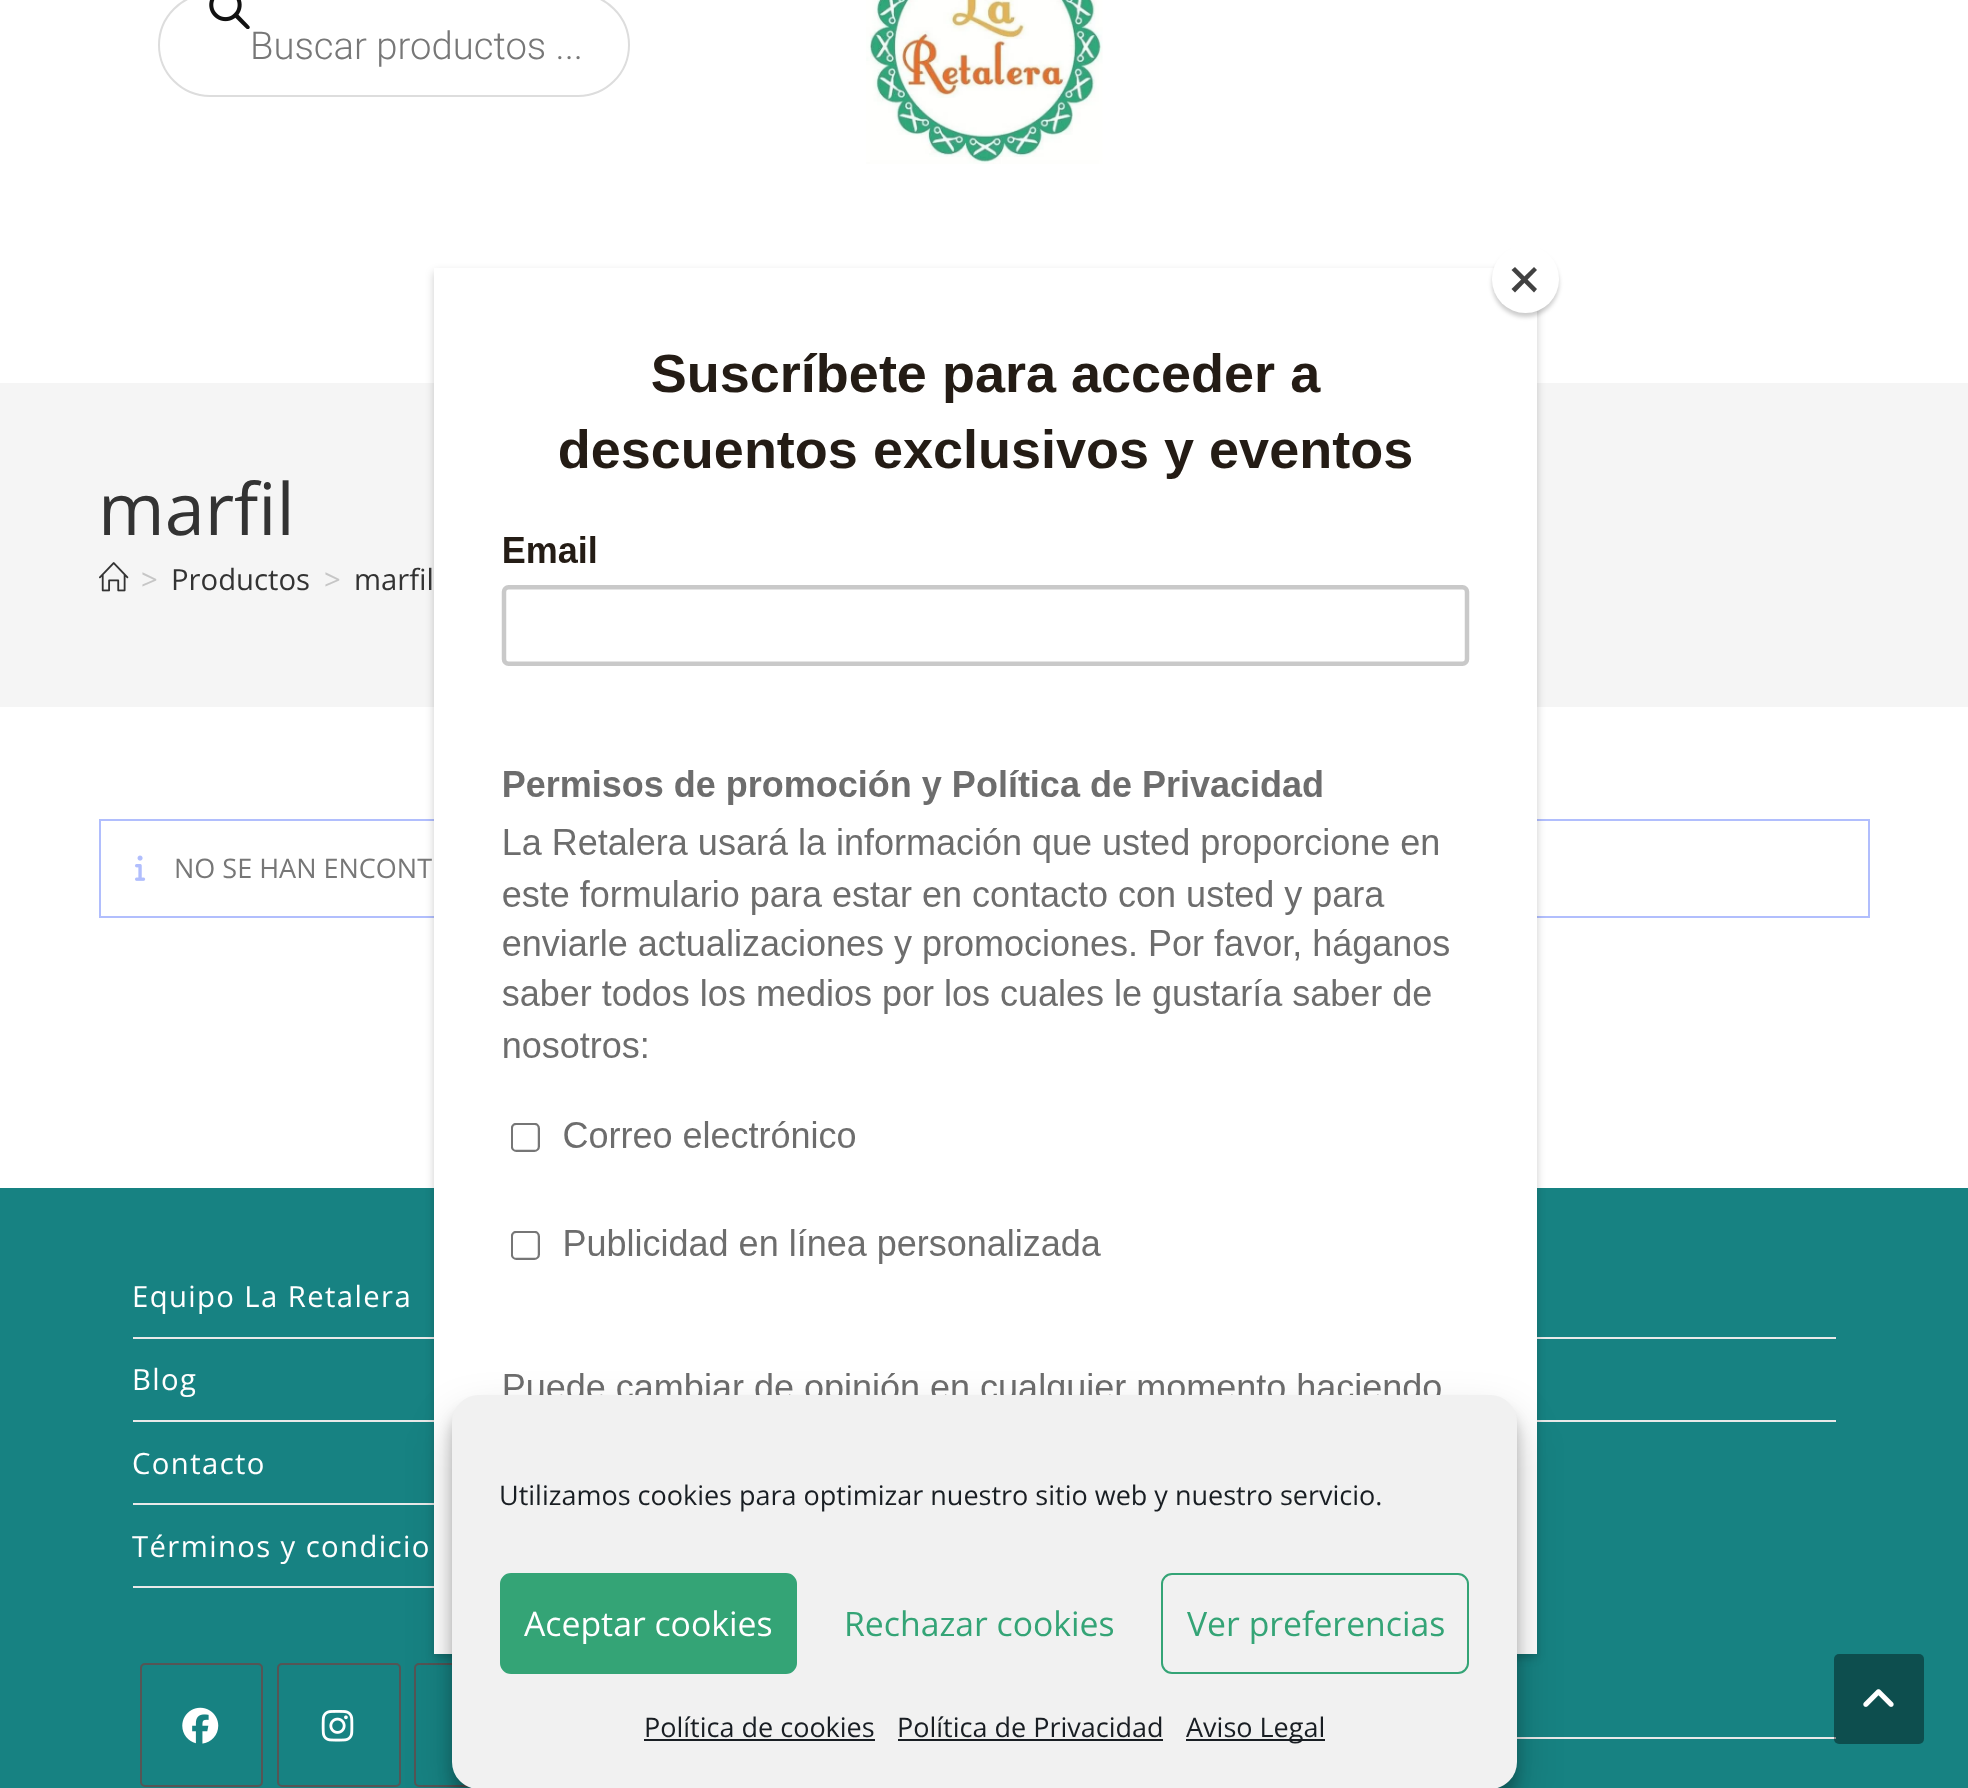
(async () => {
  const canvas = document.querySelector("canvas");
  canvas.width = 1968;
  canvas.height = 1788;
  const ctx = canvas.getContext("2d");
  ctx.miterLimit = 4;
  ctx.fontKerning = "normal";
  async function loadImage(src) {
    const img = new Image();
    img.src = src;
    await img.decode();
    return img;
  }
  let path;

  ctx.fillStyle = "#ffffff";
  ctx.fillRect(0, 0, 1968, 1788);
  ctx.beginPath();
  ctx.roundRect(159, -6, 470, 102, 51);
  ctx.strokeStyle = "#dddddd";
  ctx.lineWidth = 2;
  ctx.stroke();
  ctx.drawImage(await loadImage("img/1.png"), 209, 0, 41, 29);
  ctx.drawImage(await loadImage("img/2.png"), 866, 0, 237, 164);
  ctx.fillStyle = "#f5f5f5";
  ctx.fillRect(0, 383, 1968, 324);
  ctx.drawImage(await loadImage("img/3.png"), 99, 562, 30, 30);
  ctx.strokeStyle = "#b1befd";
  ctx.strokeRect(100, 820, 1769, 97);
  ctx.drawImage(await loadImage("img/4.png"), 135, 855, 11, 26);
  for (const [x, y, w, h, color] of [
    [0, 1188, 1968, 600, "#178282"],
    [133, 1337, 301, 2, "#e9e9e9"],
    [133, 1420, 301, 2, "#e9e9e9"],
    [133, 1503, 301, 2, "#e9e9e9"],
    [133, 1586, 301, 2, "#e9e9e9"],
    [1537, 1337, 299, 2, "#e9e9e9"],
    [1537, 1420, 299, 2, "#e9e9e9"],
  ]) {
    ctx.fillStyle = color;
    ctx.fillRect(x, y, w, h);
  }
  ctx.beginPath();
  ctx.roundRect(141, 1664, 121, 122, 4);
  ctx.strokeStyle = "#555555";
  ctx.stroke();
  ctx.drawImage(await loadImage("img/5.png"), 182, 1707, 37, 37);
  ctx.beginPath();
  ctx.roundRect(278, 1664, 122, 122, 4);
  ctx.stroke();
  ctx.drawImage(await loadImage("img/6.png"), 321, 1710, 33, 32);
  ctx.beginPath();
  ctx.roundRect(415, 1664, 122, 122, 4);
  ctx.stroke();
  ctx.fillRect(1517, 1737, 319, 2);
  ctx.save();
  path = new Path2D("M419 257H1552V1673H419ZM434 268H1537V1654H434Z");
  ctx.clip(path, "evenodd");
  ctx.fillStyle = "rgba(0, 0, 0, 0.2)";
  ctx.filter = "blur(4.5px)";
  ctx.beginPath();
  ctx.rect(434, 272, 1103, 1386);
  ctx.fill();
  ctx.filter = "none";
  ctx.restore();
  ctx.drawImage(await loadImage("img/7.png"), 434, 273, 1103, 1381);
  ctx.fillStyle = "rgba(0, 0, 0, 0.2)";
  ctx.filter = "blur(2px)";
  ctx.beginPath();
  ctx.roundRect(1492, 250, 67, 67, 33.5);
  ctx.fill();
  ctx.filter = "none";
  ctx.fillStyle = "#ffffff";
  ctx.beginPath();
  ctx.roundRect(1492, 245, 67, 68, 33.5);
  ctx.fill();
  ctx.fillStyle = "#414141";
  path = new Path2D("M1534 267L1537 270L1515 292.5L1511.5 289Z");
  ctx.fill(path);
  path = new Path2D("M1511.5 270L1515 267L1537 289L1534 292.5Z");
  ctx.fill(path);
  ctx.fillStyle = "rgba(0, 0, 0, 0.23)";
  ctx.filter = "blur(7px)";
  ctx.beginPath();
  ctx.roundRect(452, 1409, 1065, 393, 27);
  ctx.fill();
  ctx.filter = "none";
  ctx.fillStyle = "rgba(0, 0, 0, 0.19)";
  ctx.filter = "blur(22.5px)";
  ctx.beginPath();
  ctx.roundRect(452, 1418, 1065, 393, 27);
  ctx.fill();
  ctx.filter = "none";
  ctx.fillStyle = "#f1f1f1";
  ctx.beginPath();
  ctx.roundRect(453, 1396, 1063, 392, 26);
  ctx.fill();
  ctx.strokeStyle = "#f1f1f1";
  ctx.stroke();
  ctx.fillStyle = "#34a476";
  ctx.beginPath();
  ctx.roundRect(501, 1574, 295, 99, 10);
  ctx.fill();
  ctx.strokeStyle = "#34a476";
  ctx.stroke();
  ctx.beginPath();
  ctx.roundRect(1162, 1574, 306, 99, 10);
  ctx.stroke();
  for (const [x, y, w, h, color] of [
    [644, 1739, 231, 2, "#191e23"],
    [898, 1739, 265, 2, "#191e23"],
    [1186, 1739, 139, 2, "#191e23"],
  ]) {
    ctx.fillStyle = color;
    ctx.fillRect(x, y, w, h);
  }
  ctx.fillStyle = "rgba(0, 0, 0, 0.4)";
  ctx.beginPath();
  ctx.roundRect(1834, 1654, 90, 90, 5);
  ctx.fill();
  ctx.drawImage(await loadImage("img/8.png"), 1863, 1689, 31, 18);
  ctx.font = "300 38.25px Roboto";
  ctx.fillStyle = "#777777";
  ctx.fillText("Buscar productos ...", 250, 59);
  ctx.font = "72px Open Sans";
  ctx.fillStyle = "#333333";
  ctx.fillText("marfil", 98, 535);
  ctx.font = "29.25px Open Sans";
  ctx.fillStyle = "#c6c6c6";
  ctx.fillText(">", 141, 590);
  ctx.fillStyle = "#333333";
  ctx.fillText("Productos", 171, 590);
  ctx.fillStyle = "#c6c6c6";
  ctx.fillText(">", 324, 590);
  ctx.fillStyle = "#333333";
  ctx.fillText("marfil", 354, 590);
  ctx.font = "27px Open Sans";
  ctx.fillStyle = "#777777";
  ctx.fillText("NO SE HAN ENCONT", 174, 878);
  ctx.letterSpacing = "1.4px";
  ctx.font = "29.25px Open Sans";
  ctx.fillStyle = "#ffffff";
  for (const [text, x, y] of [
    ["Equipo La Retalera", 132, 1307],
    ["Blog", 132, 1390],
    ["Contacto", 132, 1474],
    ["Términos y condicio", 132, 1557],
  ]) {
    ctx.fillText(text, x, y);
  }
  ctx.letterSpacing = "0px";
  ctx.font = "27px Open Sans";
  ctx.fillStyle = "#191e23";
  ctx.fillText("Utilizamos cookies para optimizar nuestro sitio web y nuestro servicio.", 499, 1505);
  ctx.font = "33.75px Open Sans";
  ctx.fillStyle = "#ffffff";
  ctx.fillText("Aceptar cookies", 524, 1636);
  ctx.fillStyle = "#34a476";
  ctx.fillText("Rechazar cookies", 844, 1636);
  ctx.fillText("Ver preferencias", 1187, 1636);
  ctx.font = "27px Open Sans";
  ctx.fillStyle = "#191e23";
  for (const [text, x, y] of [
    ["Política de cookies", 644, 1737],
    ["Política de Privacidad", 897, 1737],
    ["Aviso Legal", 1186, 1737],
  ]) {
    ctx.fillText(text, x, y);
  }
})();
